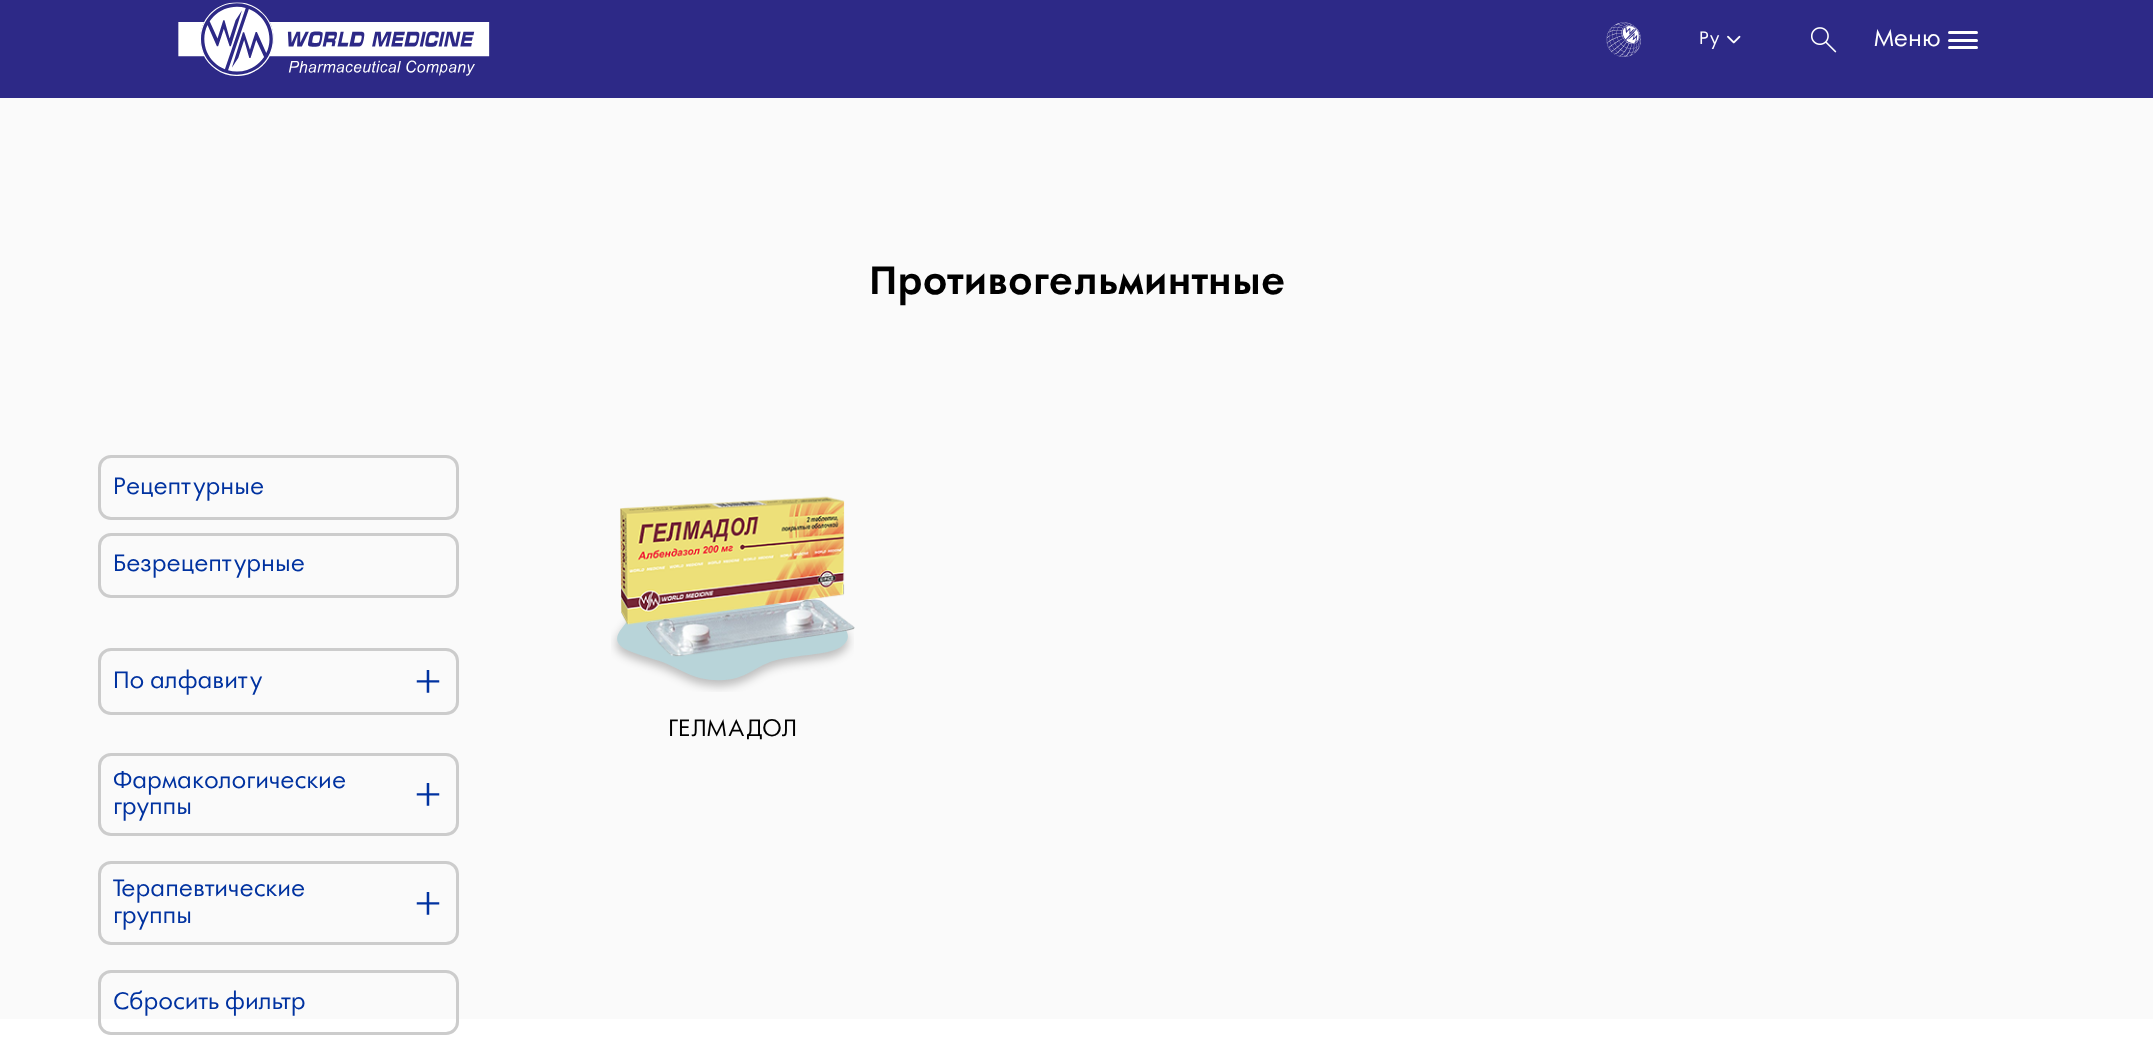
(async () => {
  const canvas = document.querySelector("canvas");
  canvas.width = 2153;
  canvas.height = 1037;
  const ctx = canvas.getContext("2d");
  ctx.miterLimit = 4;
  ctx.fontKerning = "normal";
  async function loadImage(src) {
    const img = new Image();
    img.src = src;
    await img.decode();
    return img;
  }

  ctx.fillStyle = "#ffffff";
  ctx.fillRect(0, 0, 2153, 1037);
  ctx.fillStyle = "#fafafa";
  ctx.fillRect(0, 98, 2153, 921);
  ctx.fillStyle = "#2d2987";
  ctx.fillRect(0, 0, 2153, 98);
  ctx.drawImage(await loadImage("img/1.png"), 178, 2, 312, 74);
  ctx.drawImage(await loadImage("img/2.png"), 1606, 22, 35, 35);
  ctx.drawImage(await loadImage("img/3.png"), 1727, 35, 14, 9);
  ctx.drawImage(await loadImage("img/4.png"), 1811, 27, 26, 26);
  ctx.fillStyle = "#ffffff";
  ctx.beginPath();
  ctx.roundRect(1948, 31, 30, 3, 1.5);
  ctx.fill();
  ctx.beginPath();
  ctx.roundRect(1948, 39, 30, 3, 1.5);
  ctx.fill();
  ctx.beginPath();
  ctx.roundRect(1948, 46, 30, 3, 1.5);
  ctx.fill();
  ctx.beginPath();
  ctx.roundRect(99.5, 456.5, 358, 62, 11.5);
  ctx.strokeStyle = "#cccccc";
  ctx.lineWidth = 3;
  ctx.stroke();
  ctx.beginPath();
  ctx.roundRect(99.5, 534.5, 358, 62, 11.5);
  ctx.stroke();
  ctx.beginPath();
  ctx.roundRect(99.5, 649.5, 358, 64, 11.5);
  ctx.stroke();
  ctx.beginPath();
  ctx.roundRect(99.5, 754.5, 358, 80, 11.5);
  ctx.stroke();
  ctx.beginPath();
  ctx.roundRect(99.5, 862.5, 358, 81, 11.5);
  ctx.stroke();
  ctx.beginPath();
  ctx.roundRect(99.5, 971.5, 358, 62, 11.5);
  ctx.stroke();
  ctx.drawImage(await loadImage("img/5.png"), 611, 603, 243, 89);
  ctx.drawImage(await loadImage("img/6.png"), 620, 496, 235, 161);
  ctx.font = "17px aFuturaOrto";
  ctx.fillText("Ру", 1699, 44);
  ctx.font = "22.5px aFuturaOrto";
  ctx.fillText("Меню", 1874, 46);
  ctx.font = "bold 37.5px aFuturaOrto";
  ctx.fillStyle = "#000000";
  ctx.fillText("Противогельминтные", 869, 294);
  ctx.font = "22.5px aFuturaOrto";
  ctx.fillStyle = "#0032a0";
  for (const [text, x, y] of [
    ["Рецептурные", 113, 494],
    ["Безрецептурные", 113, 571],
    ["По алфавиту", 113, 688],
  ]) {
    ctx.fillText(text, x, y);
  }
  ctx.font = "37.5px aFuturaOrto";
  ctx.fillText("+", 412, 693);
  ctx.font = "22.5px aFuturaOrto";
  ctx.fillText("Фармакологические", 113, 788);
  ctx.fillText("группы", 113, 814);
  ctx.font = "37.5px aFuturaOrto";
  ctx.fillText("+", 412, 806);
  ctx.font = "22.5px aFuturaOrto";
  ctx.fillText("Терапевтические", 113, 896);
  ctx.fillText("группы", 113, 923);
  ctx.font = "37.5px aFuturaOrto";
  ctx.fillText("+", 412, 915);
  ctx.font = "22.5px aFuturaOrto";
  ctx.fillText("Сбросить фильтр", 113, 1009);
  ctx.fillStyle = "#000000";
  ctx.fillText("ГЕЛМАДОЛ", 668, 736);
})();
